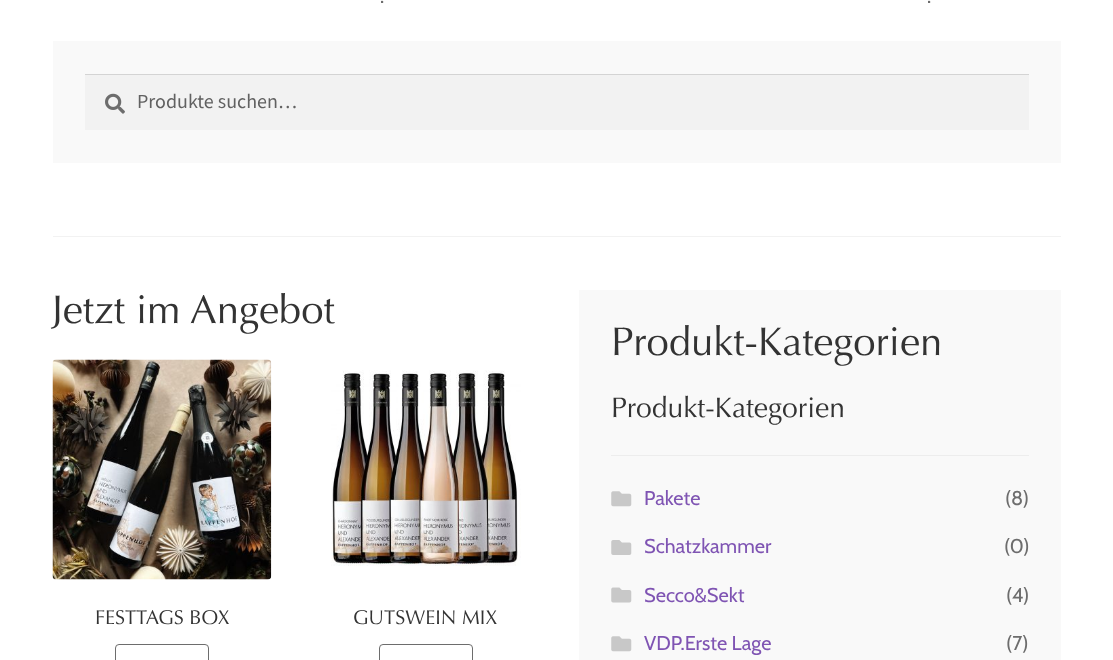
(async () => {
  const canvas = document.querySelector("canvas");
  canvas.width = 1113;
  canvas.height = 660;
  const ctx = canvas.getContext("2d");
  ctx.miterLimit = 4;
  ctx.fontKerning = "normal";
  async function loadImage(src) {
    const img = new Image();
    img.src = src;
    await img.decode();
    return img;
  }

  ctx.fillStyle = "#ffffff";
  ctx.fillRect(0, 0, 1113, 660);
  ctx.fillStyle = "#f9f9f9";
  ctx.fillRect(53, 41, 1008, 122);
  ctx.fillStyle = "#f2f2f2";
  ctx.fillRect(85, 75, 944, 55);
  ctx.drawImage(await loadImage("img/1.png"), 105, 93, 20, 21);
  ctx.fillStyle = "#d4d4d4";
  ctx.fillRect(85, 74, 944, 1);
  ctx.fillStyle = "#f2f2f2";
  ctx.fillRect(53, 236, 1008, 1);
  ctx.drawImage(await loadImage("img/2.png"), 52, 359, 220, 221);
  ctx.beginPath();
  ctx.roundRect(115.5, 644.5, 93, 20, 3.5);
  ctx.strokeStyle = "#6d6d6d";
  ctx.stroke();
  ctx.drawImage(await loadImage("img/3.png"), 331, 370, 190, 196);
  ctx.beginPath();
  ctx.roundRect(379.5, 644.5, 93, 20, 3.5);
  ctx.stroke();
  ctx.fillStyle = "#f9f9f9";
  ctx.fillRect(579, 290, 482, 370);
  ctx.fillStyle = "#ededed";
  ctx.fillRect(611, 455, 418, 1);
  ctx.drawImage(await loadImage("img/4.png"), 611, 491, 21, 16);
  ctx.drawImage(await loadImage("img/5.png"), 611, 540, 21, 15);
  ctx.drawImage(await loadImage("img/6.png"), 611, 587, 21, 16);
  ctx.drawImage(await loadImage("img/4.png"), 611, 636, 21, 16);
  ctx.font = "20px Cabin";
  ctx.fillStyle = "#6d6d6d";
  ctx.fillText(".", 380, 3);
  ctx.fillText(".", 927, 3);
  ctx.font = "20px Source Sans Pro";
  ctx.fillStyle = "#616161";
  ctx.fillText("Produkte suchen…", 137, 108);
  ctx.font = "40px Optima";
  ctx.fillStyle = "#333333";
  ctx.fillText("Jetzt im Angebot", 52, 323);
  ctx.font = "20px Optima";
  ctx.fillText("FESTTAGS BOX", 95, 624);
  ctx.fillText("GUTSWEIN MIX", 353, 624);
  ctx.font = "40px Optima";
  ctx.fillText("Produkt-Kategorien", 611, 355);
  ctx.font = "28.25px Optima";
  ctx.fillText("Produkt-Kategorien", 611, 417);
  ctx.font = "20px Cabin";
  ctx.fillStyle = "#7f54b3";
  ctx.fillText("Pakete", 644, 505);
  ctx.fillStyle = "#6d6d6d";
  ctx.fillText("(8)", 1005, 505);
  ctx.fillStyle = "#7f54b3";
  ctx.fillText("Schatzkammer", 644, 553);
  ctx.fillStyle = "#6d6d6d";
  ctx.fillText("(0)", 1004, 553);
  ctx.fillStyle = "#7f54b3";
  ctx.fillText("Secco&Sekt", 644, 602);
  ctx.fillStyle = "#6d6d6d";
  ctx.fillText("(4)", 1006, 602);
  ctx.fillStyle = "#7f54b3";
  ctx.fillText("VDP.Erste Lage", 644, 650);
  ctx.fillStyle = "#6d6d6d";
  ctx.fillText("(7)", 1006, 650);
})();
